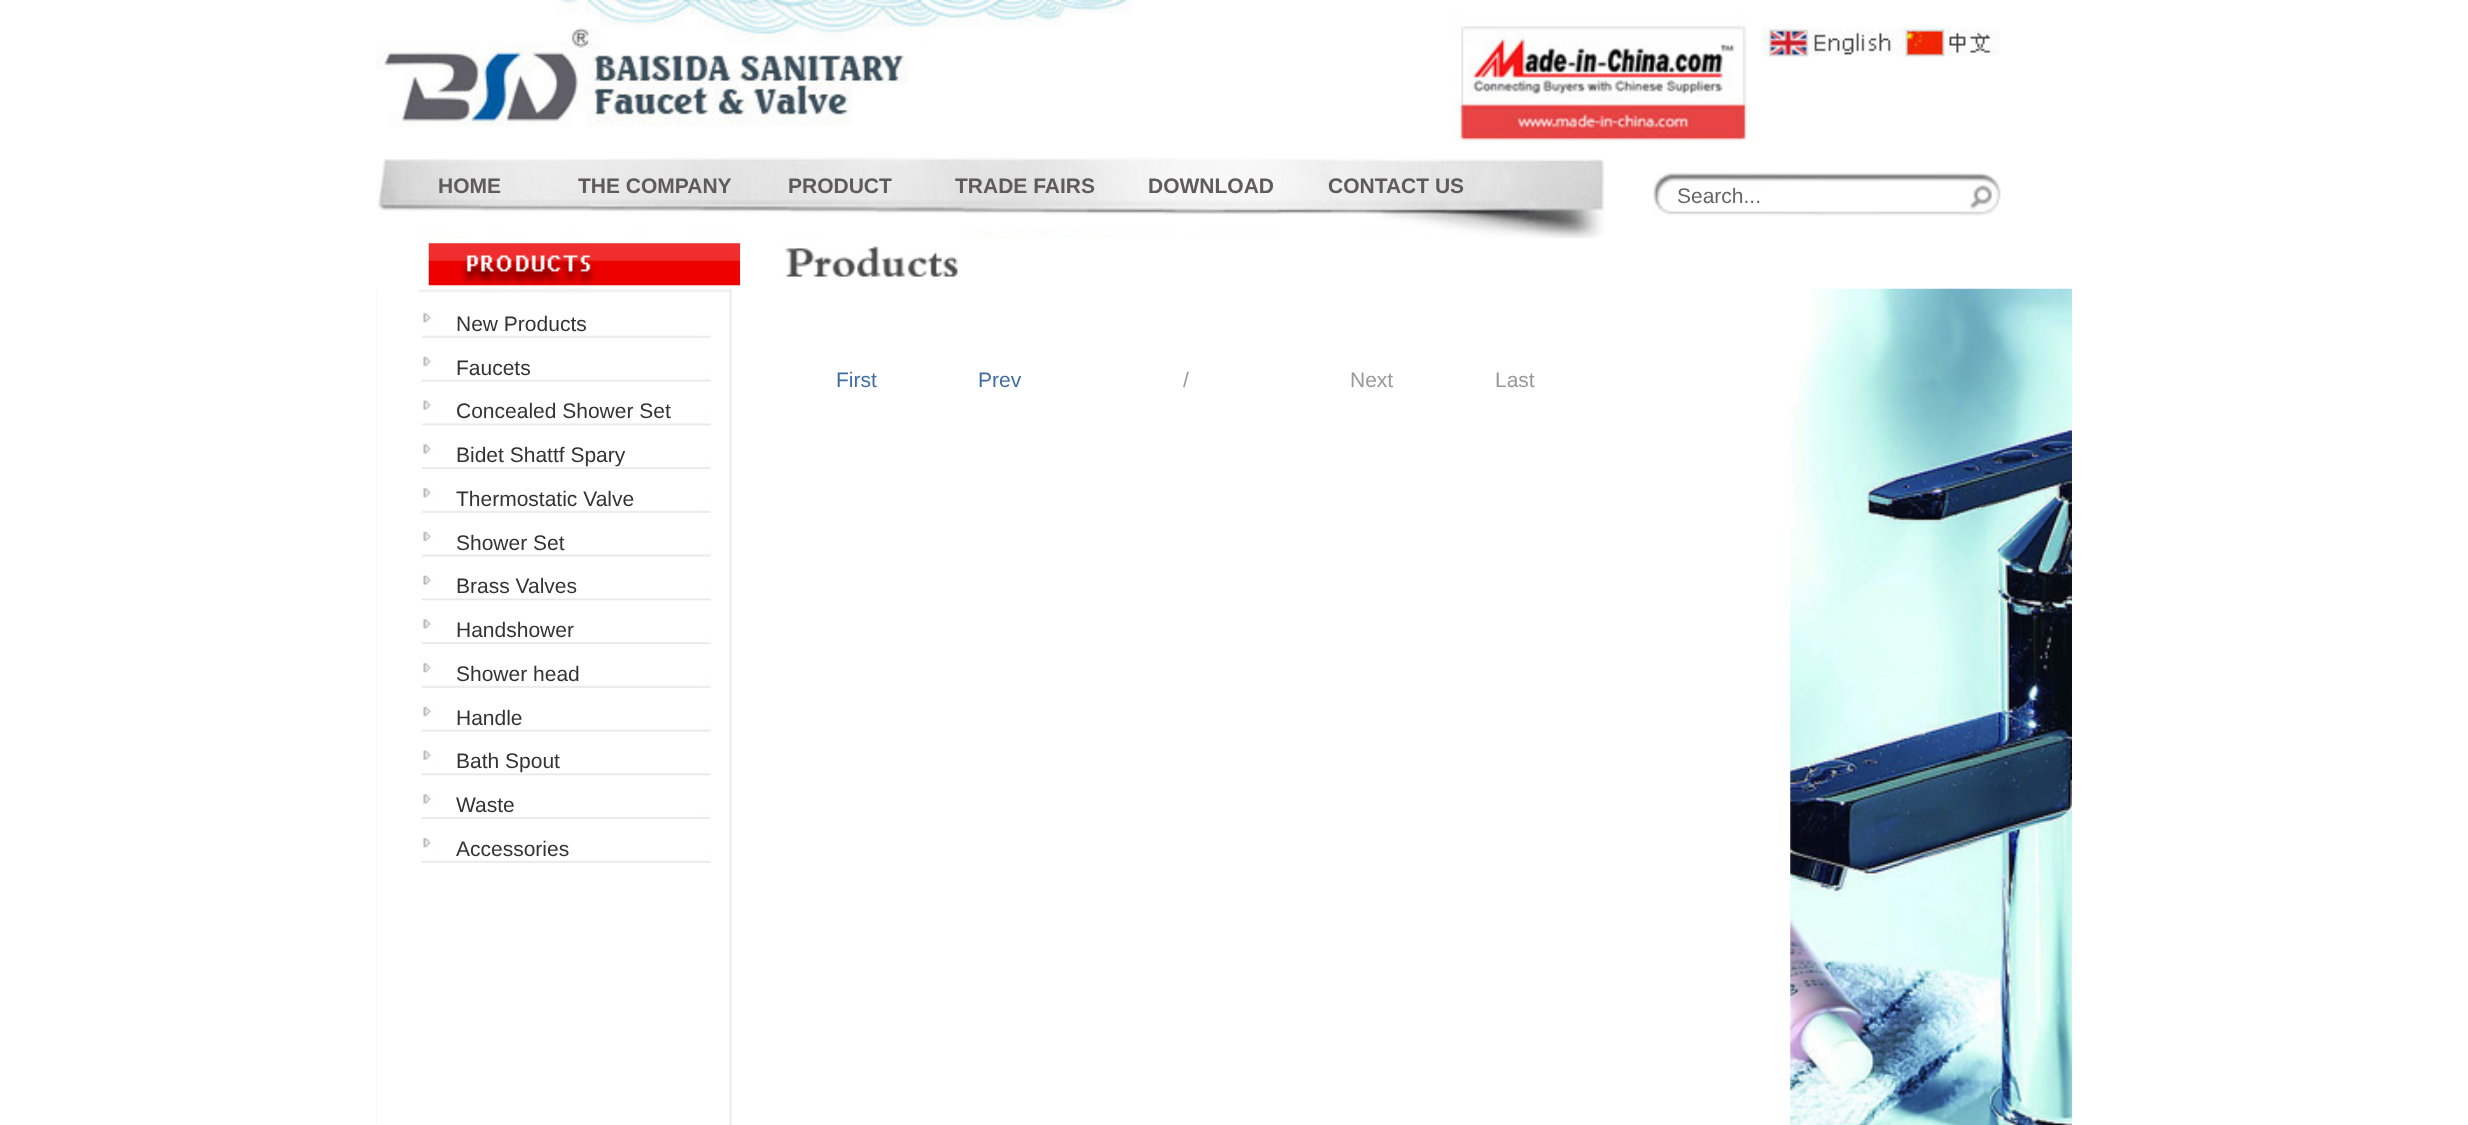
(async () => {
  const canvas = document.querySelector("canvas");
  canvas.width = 2468;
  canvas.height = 1125;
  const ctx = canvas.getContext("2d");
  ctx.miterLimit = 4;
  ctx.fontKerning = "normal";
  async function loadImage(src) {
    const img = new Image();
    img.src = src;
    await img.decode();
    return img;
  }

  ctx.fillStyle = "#ffffff";
  ctx.fillRect(0, 0, 2468, 1125);
  ctx.drawImage(await loadImage("img/2.png"), 377, 159, 1228, 79);
  ctx.drawImage(await loadImage("img/1.png"), 376, 0, 1624, 160);
  ctx.drawImage(await loadImage("img/3.png"), 1653, 172, 307, 44);
  ctx.drawImage(await loadImage("img/4.png"), 1960, 173, 41, 43);
  ctx.drawImage(await loadImage("img/5.png"), 428, 243, 313, 43);
  ctx.drawImage(await loadImage("img/6.png"), 740, 243, 218, 43);
  ctx.drawImage(await loadImage("img/7.png"), 376, 288, 356, 837);
  ctx.drawImage(await loadImage("img/8.png"), 421, 312, 290, 26);
  ctx.drawImage(await loadImage("img/9.png"), 421, 356, 290, 26);
  ctx.drawImage(await loadImage("img/10.png"), 421, 400, 290, 26);
  ctx.drawImage(await loadImage("img/11.png"), 421, 444, 290, 25);
  ctx.drawImage(await loadImage("img/8.png"), 421, 487, 290, 26);
  ctx.drawImage(await loadImage("img/9.png"), 421, 531, 290, 26);
  ctx.drawImage(await loadImage("img/10.png"), 421, 575, 290, 26);
  ctx.drawImage(await loadImage("img/11.png"), 421, 619, 290, 25);
  ctx.drawImage(await loadImage("img/8.png"), 421, 662, 290, 26);
  ctx.drawImage(await loadImage("img/9.png"), 421, 706, 290, 26);
  ctx.drawImage(await loadImage("img/10.png"), 421, 750, 290, 26);
  ctx.drawImage(await loadImage("img/11.png"), 421, 794, 290, 25);
  ctx.drawImage(await loadImage("img/8.png"), 421, 837, 290, 26);
  ctx.drawImage(await loadImage("img/12.png"), 1790, 288, 282, 837);
  ctx.font = "bold 21px Liberation Sans";
  ctx.fillStyle = "#5d5b5b";
  for (const [text, x, y] of [
    ["HOME", 438, 193],
    ["THE COMPANY", 578, 193],
    ["PRODUCT", 788, 193],
    ["TRADE FAIRS", 955, 193],
    ["DOWNLOAD", 1148, 193],
    ["CONTACT US", 1328, 193],
  ]) {
    ctx.fillText(text, x, y);
  }
  ctx.font = "21px Liberation Sans";
  ctx.fillStyle = "#666666";
  ctx.fillText("Search...", 1677, 203);
  ctx.fillStyle = "#333333";
  for (const [text, x, y] of [
    ["New Products", 456, 331],
    ["Faucets", 456, 375],
    ["Concealed Shower Set", 456, 418],
    ["Bidet Shattf Spary", 456, 462],
    ["Thermostatic Valve", 456, 506],
    ["Shower Set", 456, 550],
    ["Brass Valves", 456, 593],
    ["Handshower", 456, 637],
    ["Shower head", 456, 681],
    ["Handle", 456, 725],
    ["Bath Spout", 456, 768],
    ["Waste", 456, 812],
    ["Accessories", 456, 856],
  ]) {
    ctx.fillText(text, x, y);
  }
  ctx.fillStyle = "#406da4";
  ctx.fillText("First", 836, 387);
  ctx.fillText("Prev", 978, 387);
  ctx.fillStyle = "#999999";
  for (const [text, x, y] of [
    ["/", 1183, 387],
    ["Next", 1350, 387],
    ["Last", 1495, 387],
  ]) {
    ctx.fillText(text, x, y);
  }
})();
